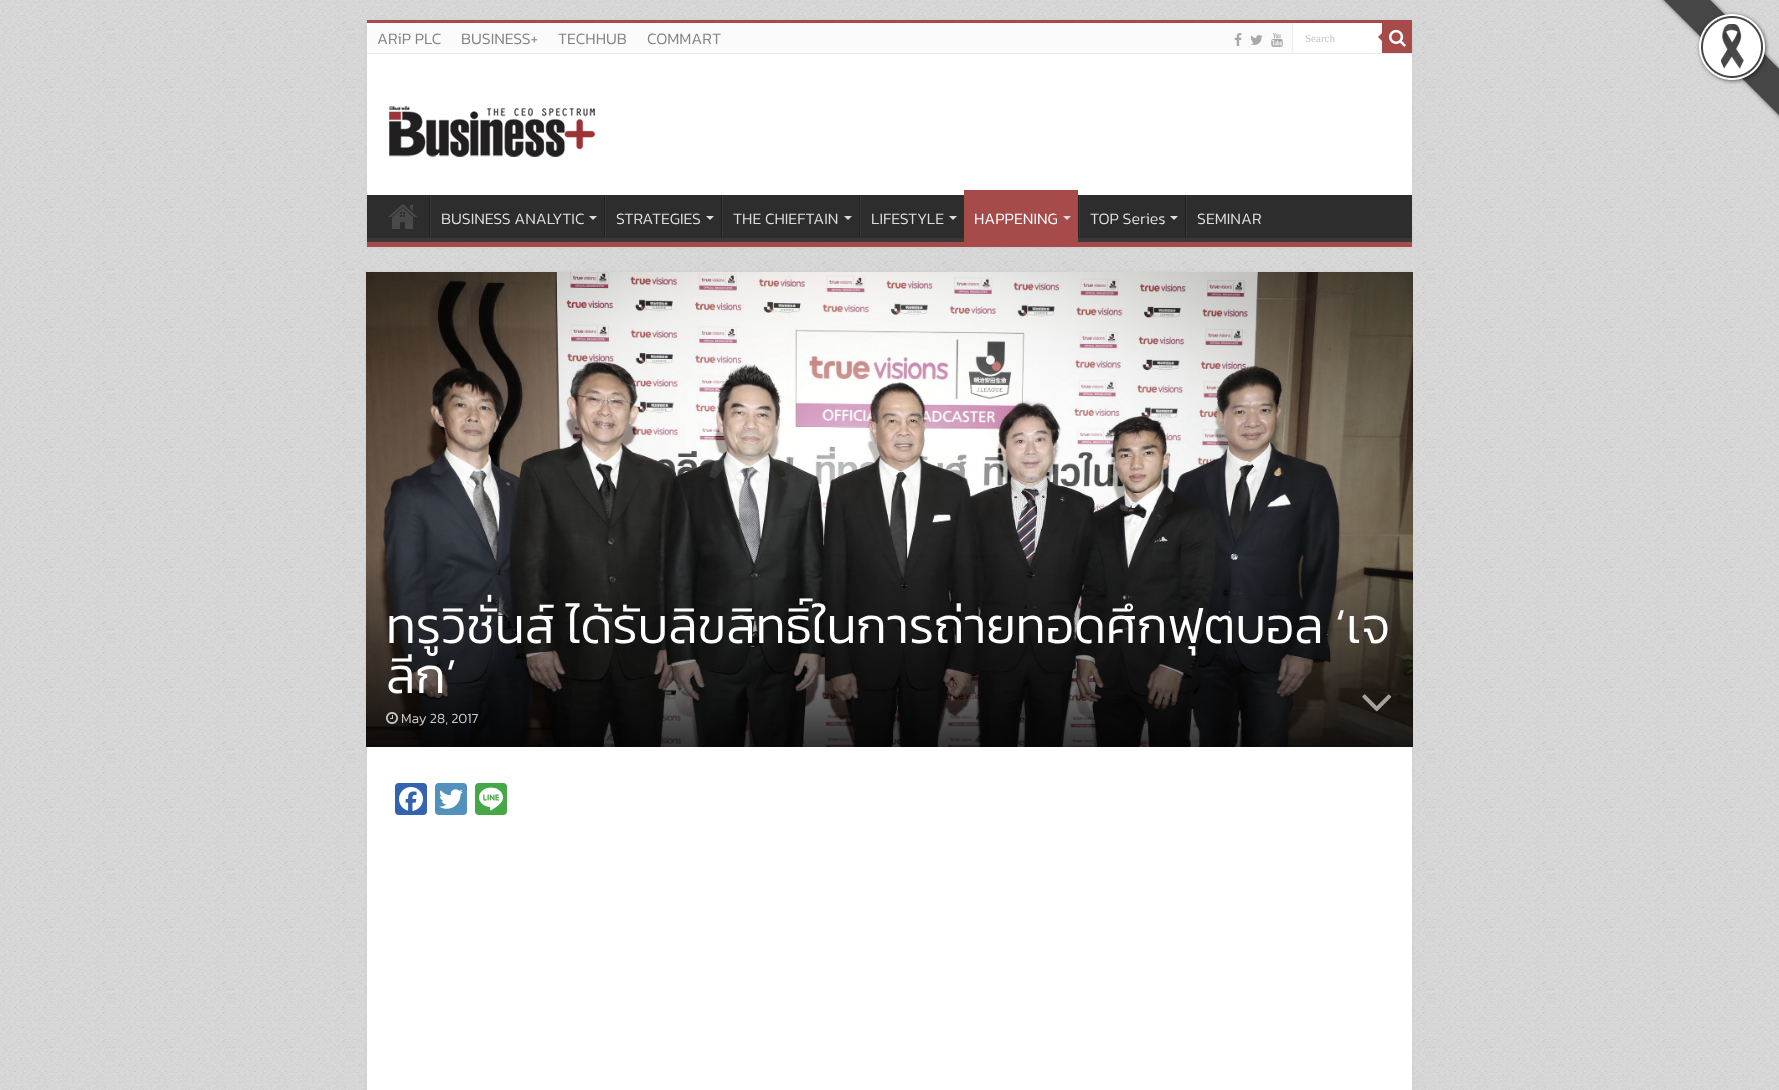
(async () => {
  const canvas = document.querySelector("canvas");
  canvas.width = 1779;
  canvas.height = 1090;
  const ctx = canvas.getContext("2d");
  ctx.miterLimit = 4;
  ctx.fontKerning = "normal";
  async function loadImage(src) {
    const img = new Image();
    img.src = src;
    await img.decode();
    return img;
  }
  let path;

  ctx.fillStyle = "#d9d9d9";
  ctx.fillRect(0, 0, 1779, 1090);
  ctx.drawImage(await loadImage("img/1.png"), 0, 0, 1779, 1090);
  ctx.fillStyle = "#cacaca";
  ctx.filter = "blur(1.5px)";
  ctx.beginPath();
  ctx.rect(367, 20, 1045, 227);
  ctx.fill();
  ctx.filter = "none";
  for (const [x, y, w, h, color] of [
    [367, 54, 1045, 141, "#ffffff"],
    [367, 20, 1045, 3, "#a64a4a"],
    [367, 23, 1015, 30, "#fbfbfb"],
    [367, 53, 1045, 1, "#ececec"],
  ]) {
    ctx.fillStyle = color;
    ctx.fillRect(x, y, w, h);
  }
  ctx.drawImage(await loadImage("img/2.png"), 1234, 33, 8, 13);
  ctx.drawImage(await loadImage("img/3.png"), 1250, 35, 13, 10);
  ctx.drawImage(await loadImage("img/4.png"), 1271, 33, 12, 14);
  for (const [x, y, w, h, color] of [
    [1293, 23, 89, 29, "#ffffff"],
    [1292, 23, 1, 29, "#ececec"],
    [1382, 23, 30, 30, "#a64a4a"],
  ]) {
    ctx.fillStyle = color;
    ctx.fillRect(x, y, w, h);
  }
  ctx.drawImage(await loadImage("img/5.png"), 1389, 29, 17, 18);
  path = new Path2D("M1382 33V41L1378 37Z");
  ctx.fill(path);
  ctx.drawImage(await loadImage("img/6.png"), 389, 106, 206, 51);
  ctx.fillStyle = "#2d2d2d";
  ctx.fillRect(367, 195, 1045, 43);
  ctx.save();
  ctx.beginPath();
  ctx.rect(367, 195, 1045, 47);
  ctx.clip();
  ctx.fillStyle = "#393939";
  path = new Path2D("M268 96H1511V341H268ZM366 189H1412V229C1412 230 1413 238 1411 238H366L365 237V189Z");
  ctx.fill(path, "evenodd");
  ctx.restore();
  ctx.fillStyle = "#a64a4a";
  ctx.fillRect(367, 242, 1045, 5);
  ctx.drawImage(await loadImage("img/7.png"), 388, 204, 29, 25);
  ctx.fillStyle = "#222222";
  ctx.fillRect(429, 195, 1, 42);
  ctx.fillStyle = "#383838";
  ctx.fillRect(430, 195, 1, 42);
  ctx.fillStyle = "#dddddd";
  path = new Path2D("M589 216H597L593 220Z");
  ctx.fill(path);
  ctx.fillStyle = "#222222";
  ctx.fillRect(604, 195, 1, 42);
  ctx.fillStyle = "#383838";
  ctx.fillRect(605, 195, 1, 42);
  ctx.fillStyle = "#dddddd";
  path = new Path2D("M706 216H714L710 220Z");
  ctx.fill(path);
  ctx.fillStyle = "#222222";
  ctx.fillRect(721, 195, 1, 42);
  ctx.fillStyle = "#383838";
  ctx.fillRect(722, 195, 1, 42);
  ctx.fillStyle = "#dddddd";
  path = new Path2D("M844 216H852L848 220Z");
  ctx.fill(path);
  ctx.fillStyle = "#222222";
  ctx.fillRect(859, 195, 1, 42);
  ctx.fillStyle = "#383838";
  ctx.fillRect(860, 195, 1, 42);
  ctx.fillStyle = "#dddddd";
  path = new Path2D("M949 216H957L953 220Z");
  ctx.fill(path);
  ctx.fillStyle = "#a64a4a";
  ctx.fillRect(964, 190, 114, 52);
  ctx.fillStyle = "#dddddd";
  path = new Path2D("M1063 216H1071L1067 220Z");
  ctx.fill(path);
  ctx.fillStyle = "#222222";
  ctx.fillRect(1078, 195, 1, 42);
  ctx.fillStyle = "#383838";
  ctx.fillRect(1079, 195, 1, 42);
  ctx.fillStyle = "#dddddd";
  path = new Path2D("M1170 216H1178L1174 220Z");
  ctx.fill(path);
  ctx.fillStyle = "#222222";
  ctx.fillRect(1185, 195, 1, 42);
  ctx.fillStyle = "#383838";
  ctx.fillRect(1186, 195, 1, 42);
  ctx.fillStyle = "#cacaca";
  ctx.filter = "blur(1.5px)";
  ctx.beginPath();
  ctx.rect(367, 272, 1045, 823);
  ctx.fill();
  ctx.filter = "none";
  ctx.fillStyle = "#ffffff";
  ctx.fillRect(367, 747, 1045, 343);
  ctx.drawImage(await loadImage("img/8.png"), 366, 272, 1047, 475);
  ctx.drawImage(await loadImage("img/9.png"), 386, 712, 12, 12);
  ctx.drawImage(await loadImage("img/10.png"), 1362, 694, 30, 18);
  ctx.fillStyle = "#3362ae";
  ctx.beginPath();
  ctx.roundRect(395, 783, 32, 32, 4);
  ctx.fill();
  ctx.drawImage(await loadImage("img/11.png"), 399, 787, 24, 24);
  ctx.fillStyle = "#5291bb";
  ctx.beginPath();
  ctx.roundRect(435, 783, 32, 32, 4);
  ctx.fill();
  ctx.drawImage(await loadImage("img/12.png"), 439, 789, 24, 20);
  ctx.fillStyle = "#46a746";
  ctx.beginPath();
  ctx.roundRect(475, 783, 32, 32, 4);
  ctx.fill();
  ctx.drawImage(await loadImage("img/13.png"), 479, 787, 24, 24);
  ctx.drawImage(await loadImage("img/14.png"), 1659, 0, 120, 120);
  ctx.font = "300 16px Kanit";
  ctx.fillStyle = "#838383";
  for (const [text, x, y] of [
    ["ARiP PLC", 377, 44],
    ["BUSINESS+", 461, 44],
    ["TECHHUB", 558, 44],
    ["COMMART", 647, 44],
  ]) {
    ctx.fillText(text, x, y);
  }
  ctx.font = "11px Liberation Serif";
  ctx.fillStyle = "#c5c5c5";
  ctx.fillText("Search", 1305, 42);
  ctx.font = "300 16px Kanit";
  ctx.fillStyle = "#dddddd";
  for (const [text, x, y] of [
    ["BUSINESS ANALYTIC", 441, 224],
    ["STRATEGIES", 616, 224],
    ["THE CHIEFTAIN", 733, 224],
    ["LIFESTYLE", 871, 224],
  ]) {
    ctx.fillText(text, x, y);
  }
  ctx.fillStyle = "#ffffff";
  ctx.fillText("HAPPENING", 974, 224);
  ctx.fillStyle = "#dddddd";
  ctx.fillText("TOP Series", 1090, 224);
  ctx.fillText("SEMINAR", 1197, 224);
  ctx.font = "300 50px Kanit";
  ctx.fillStyle = "#ffffff";
  ctx.fillText("ทรูวิชั่นส์ ได้รับลิขสิทธิ์ในการถ่ายทอดศึกฟุตบอล ‘เจ", 386, 643);
  ctx.fillText("ลีก’", 386, 693);
  ctx.font = "300 14px Kanit";
  ctx.fillStyle = "#cccccc";
  ctx.fillText("May 28, 2017", 401, 723);
})();
